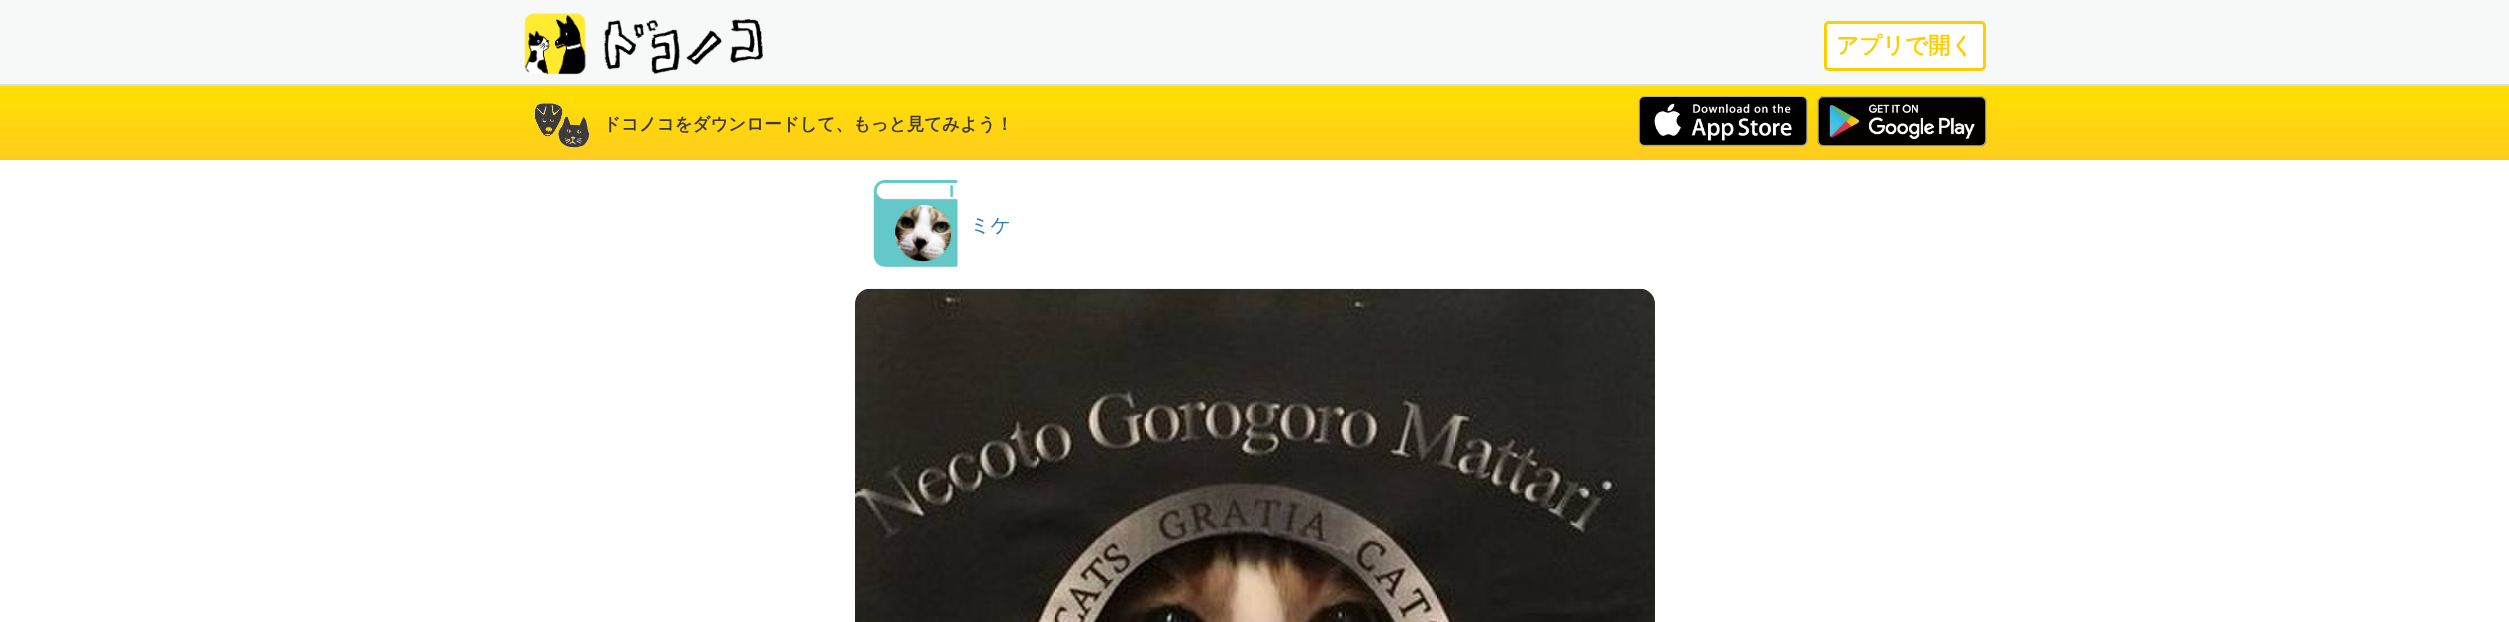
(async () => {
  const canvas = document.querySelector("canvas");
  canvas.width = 2509;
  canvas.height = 622;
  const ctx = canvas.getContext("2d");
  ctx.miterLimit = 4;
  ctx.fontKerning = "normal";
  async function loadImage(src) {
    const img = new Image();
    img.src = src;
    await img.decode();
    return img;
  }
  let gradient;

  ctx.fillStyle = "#ffffff";
  ctx.fillRect(0, 0, 2509, 622);
  ctx.fillStyle = "#f7f8f8";
  ctx.fillRect(0, 0, 2509, 84);
  ctx.fillStyle = "#dcdddd";
  ctx.fillRect(0, 84, 2509, 2);
  ctx.drawImage(await loadImage("img/1.png"), 524, 13, 62, 62);
  ctx.drawImage(await loadImage("img/2.png"), 604, 19, 160, 55);
  ctx.fillStyle = "#ffffff";
  ctx.beginPath();
  ctx.roundRect(1825.5, 22.5, 159, 47, 3.5);
  ctx.fill();
  ctx.strokeStyle = "#ffce00";
  ctx.lineWidth = 3;
  ctx.stroke();
  gradient = ctx.createLinearGradient(0, 86, 0, 160);
  gradient.addColorStop(0, "#ffe100");
  gradient.addColorStop(1, "#ffcc1e");
  ctx.fillStyle = gradient;
  ctx.fillRect(0, 86, 2509, 74);
  ctx.drawImage(await loadImage("img/3.png"), 534, 103, 56, 45);
  ctx.drawImage(await loadImage("img/4.png"), 1638, 96, 170, 51);
  ctx.drawImage(await loadImage("img/5.png"), 1817, 96, 170, 51);
  ctx.drawImage(await loadImage("img/6.png"), 873, 180, 85, 87);
  ctx.drawImage(await loadImage("img/7.png"), 895, 205, 57, 57);
  ctx.drawImage(await loadImage("img/8.png"), 855, 288, 800, 334);
  ctx.font = "bold 22.5px WenQuanYi Zen Hei";
  ctx.fillStyle = "#ffce00";
  ctx.fillText("アプリで開く", 1836, 53);
  ctx.font = "bold 17.5px WenQuanYi Zen Hei";
  ctx.fillStyle = "#3e3a39";
  ctx.fillText("ドコノコをダウンロードして、もっと見てみよう！", 603, 130);
  ctx.font = "500 20px WenQuanYi Zen Hei";
  ctx.fillStyle = "#337ab7";
  ctx.fillText("ミケ", 970, 232);
})();
